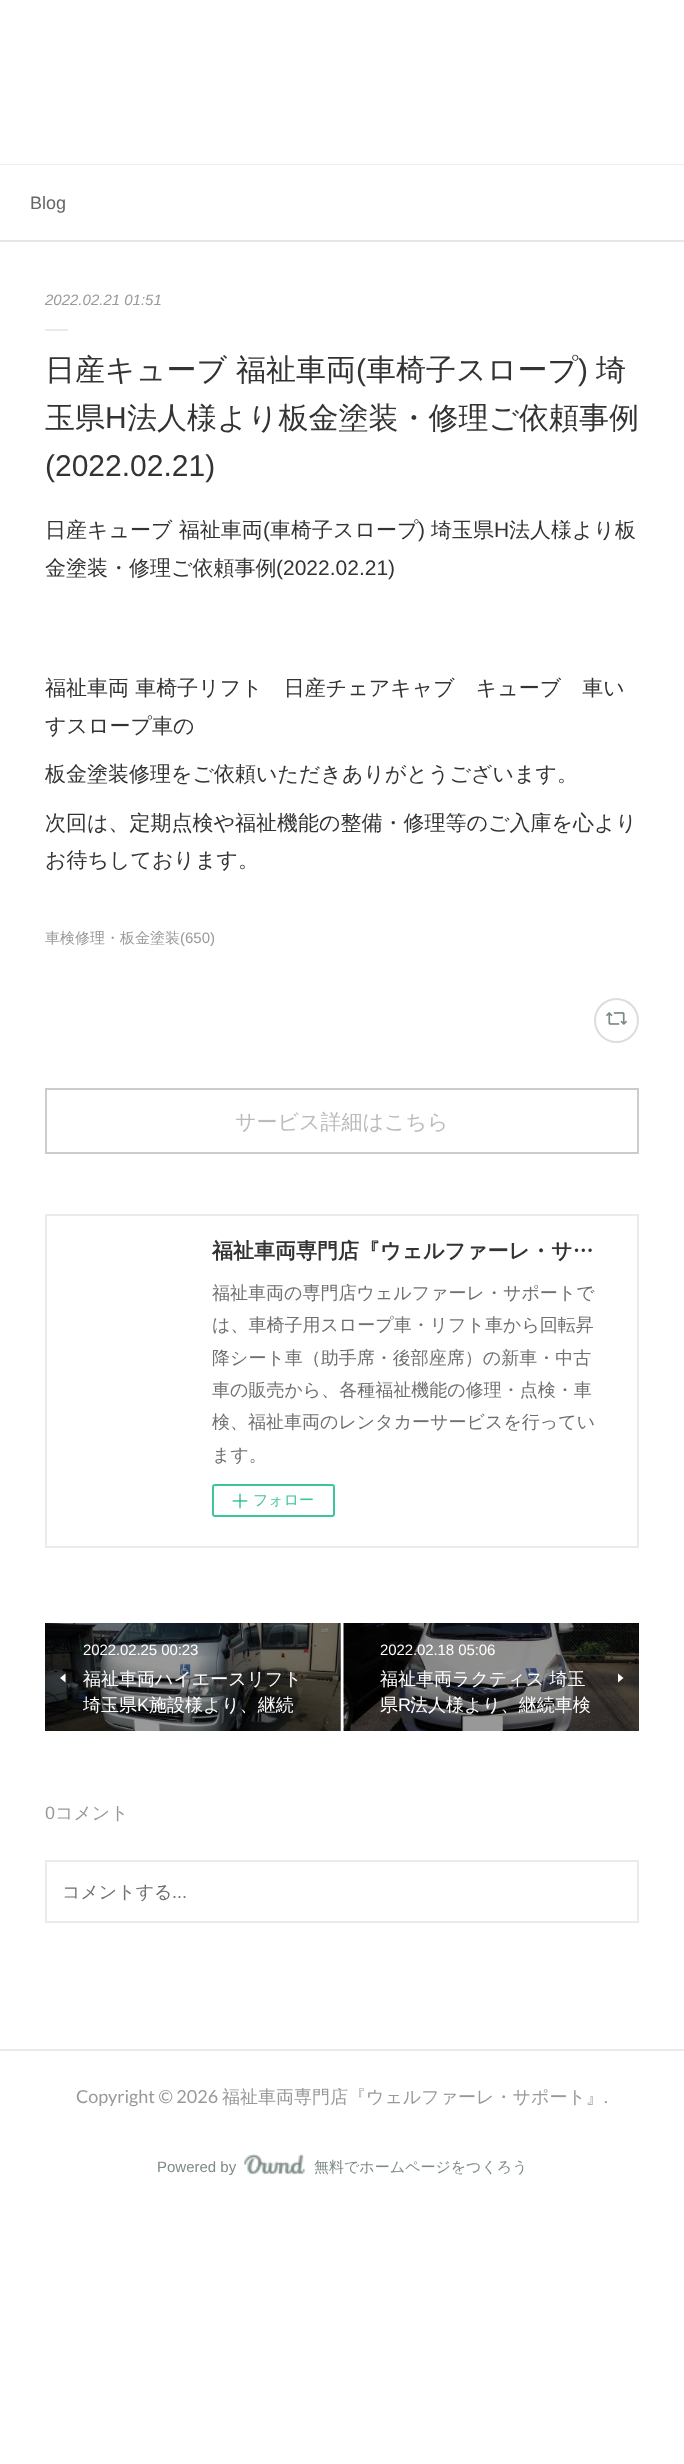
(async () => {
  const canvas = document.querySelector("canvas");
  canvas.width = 684;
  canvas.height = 2464;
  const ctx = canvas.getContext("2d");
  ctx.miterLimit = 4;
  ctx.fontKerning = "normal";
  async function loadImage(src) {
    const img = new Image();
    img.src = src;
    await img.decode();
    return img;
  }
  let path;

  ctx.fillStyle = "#ffffff";
  ctx.fillRect(0, 0, 684, 2464);
  for (const [x, y, w, h, color] of [
    [340, 1623, 1, 108, "#999999"],
    [0, 164, 684, 1, "#eeeeee"],
    [0, 240, 684, 2, "#e6e6e6"],
    [45, 329, 23, 2, "#ebebeb"],
  ]) {
    ctx.fillStyle = color;
    ctx.fillRect(x, y, w, h);
  }
  ctx.beginPath();
  ctx.arc(616.5, 1020.5, 21.5, 0, Math.PI * 2);
  ctx.strokeStyle = "#dddddd";
  ctx.lineWidth = 2;
  ctx.stroke();
  ctx.drawImage(await loadImage("img/1.png"), 606, 1012, 21, 13);
  ctx.strokeStyle = "#cccccc";
  ctx.strokeRect(46, 1089, 592, 64);
  ctx.strokeStyle = "#ebebeb";
  ctx.strokeRect(46, 1215, 592, 332);
  ctx.beginPath();
  ctx.roundRect(213, 1485, 121, 31, 2);
  ctx.strokeStyle = "#3dc49d";
  ctx.stroke();
  ctx.drawImage(await loadImage("img/2.png"), 232, 1493, 16, 16);
  ctx.drawImage(await loadImage("img/3.png"), 45, 1623, 296, 108);
  ctx.fillStyle = "#ffffff";
  path = new Path2D("M65.5 1682.5V1673.5L60 1678Z");
  ctx.fill(path);
  ctx.drawImage(await loadImage("img/4.png"), 343, 1623, 296, 108);
  path = new Path2D("M618 1673.5V1682.5L623.5 1678Z");
  ctx.fill(path);
  ctx.strokeStyle = "#ebebeb";
  ctx.strokeRect(46, 1861, 592, 61);
  ctx.fillStyle = "#ebebeb";
  ctx.fillRect(0, 2049, 684, 2);
  ctx.drawImage(await loadImage("img/5.png"), 243, 2154, 63, 21);
  ctx.font = "18px Liberation Sans";
  ctx.fillStyle = "#666666";
  ctx.fillText("Blog", 30, 209);
  ctx.font = "italic 15px Liberation Sans";
  ctx.fillStyle = "#999999";
  ctx.fillText("2022.02.21 01:51", 45, 305);
  ctx.font = "500 30px WenQuanYi Zen Hei";
  ctx.fillStyle = "#333333";
  ctx.fillText("日産キューブ 福祉車両", 45, 380);
  ctx.font = "30px Liberation Sans";
  ctx.fillText("(", 356, 380);
  ctx.font = "500 30px WenQuanYi Zen Hei";
  ctx.fillText("車椅子スロープ", 366, 380);
  ctx.font = "30px Liberation Sans";
  ctx.fillText(")", 578, 380);
  ctx.font = "500 30px WenQuanYi Zen Hei";
  ctx.fillText("埼", 596, 380);
  ctx.fillText("玉県", 45, 428);
  ctx.font = "30px Liberation Sans";
  ctx.fillText("H", 105, 428);
  ctx.font = "500 30px WenQuanYi Zen Hei";
  ctx.fillText("法人様より板金塗装・修理ご依頼事例", 127, 428);
  ctx.font = "30px Liberation Sans";
  ctx.fillText("(2022.02.21)", 45, 476);
  ctx.font = "500 21px WenQuanYi Zen Hei";
  ctx.fillText("日産キューブ 福祉車両", 45, 537);
  ctx.font = "21px Liberation Sans";
  ctx.fillText("(", 263, 537);
  ctx.font = "500 21px WenQuanYi Zen Hei";
  ctx.fillText("車椅子スロープ", 270, 537);
  ctx.font = "21px Liberation Sans";
  ctx.fillText(")", 418, 537);
  ctx.font = "500 21px WenQuanYi Zen Hei";
  ctx.fillText("埼玉県", 431, 537);
  ctx.font = "21px Liberation Sans";
  ctx.fillText("H", 494, 537);
  ctx.font = "500 21px WenQuanYi Zen Hei";
  ctx.fillText("法人様より板", 509, 537);
  ctx.fillText("金塗装・修理ご依頼事例", 45, 575);
  ctx.font = "21px Liberation Sans";
  ctx.fillText("(2022.02.21)", 276, 575);
  ctx.font = "500 21px WenQuanYi Zen Hei";
  for (const [text, x, y] of [
    ["福祉車両 車椅子リフト　日産チェアキャブ　キューブ　車い", 45, 695],
    ["すスロープ車の", 45, 733],
    ["板金塗装修理をご依頼いただきありがとうございます。", 45, 781],
    ["次回は、定期点検や福祉機能の整備・修理等のご入庫を心より", 45, 830],
    ["お待ちしております。", 45, 867],
  ]) {
    ctx.fillText(text, x, y);
  }
  ctx.font = "500 15px WenQuanYi Zen Hei";
  ctx.fillStyle = "#999999";
  ctx.fillText("車検修理・板金塗装", 45, 943);
  ctx.font = "15px Liberation Sans";
  ctx.fillText("(650)", 180, 943);
  ctx.font = "500 21px WenQuanYi Zen Hei";
  ctx.fillStyle = "#bbbbbb";
  ctx.fillText("サービス詳細はこちら", 235, 1129);
  ctx.font = "bold 21px WenQuanYi Zen Hei";
  ctx.fillStyle = "#333333";
  ctx.fillText("福祉車両専門店『ウェルファーレ・サ…", 212, 1258);
  ctx.font = "500 18px WenQuanYi Zen Hei";
  ctx.fillStyle = "#707070";
  for (const [text, x, y] of [
    ["福祉車両の専門店ウェルファーレ・サポートで", 212, 1299],
    ["は、車椅子用スロープ車・リフト車から回転昇", 212, 1331],
    ["降シート車（助手席・後部座席）の新車・中古", 212, 1364],
    ["車の販売から、各種福祉機能の修理・点検・車", 212, 1396],
    ["検、福祉車両のレンタカーサービスを行ってい", 212, 1428],
    ["ます。", 212, 1461],
  ]) {
    ctx.fillText(text, x, y);
  }
  ctx.font = "500 15px WenQuanYi Zen Hei";
  ctx.fillStyle = "#3dc49d";
  ctx.fillText("フォロー", 253, 1505);
  ctx.letterSpacing = "-0.1px";
  ctx.font = "15px Liberation Sans";
  ctx.fillStyle = "#ffffff";
  ctx.fillText("2022.02.25 00:23", 83, 1655);
  ctx.letterSpacing = "0px";
  ctx.font = "500 18px WenQuanYi Zen Hei";
  ctx.fillText("福祉車両ハイエースリフト", 83, 1685);
  ctx.fillText("埼玉県", 83, 1711);
  ctx.font = "18px Liberation Sans";
  ctx.fillText("K", 137, 1711);
  ctx.font = "500 18px WenQuanYi Zen Hei";
  ctx.fillText("施設様より、継続", 149, 1711);
  ctx.letterSpacing = "-0.1px";
  ctx.font = "15px Liberation Sans";
  ctx.fillText("2022.02.18 05:06", 380, 1655);
  ctx.letterSpacing = "0px";
  ctx.font = "500 18px WenQuanYi Zen Hei";
  ctx.fillText("福祉車両ラクティス 埼玉", 380, 1685);
  ctx.fillText("県", 380, 1711);
  ctx.font = "18px Liberation Sans";
  ctx.fillText("R", 398, 1711);
  ctx.font = "500 18px WenQuanYi Zen Hei";
  ctx.fillText("法人様より、継続車検", 410, 1711);
  ctx.font = "18px Liberation Sans";
  ctx.fillStyle = "#999999";
  ctx.fillText("0", 45, 1819);
  ctx.font = "500 18px WenQuanYi Zen Hei";
  ctx.fillText("コメント", 55, 1819);
  ctx.fillStyle = "#707070";
  ctx.fillText("コメントする", 62, 1898);
  ctx.font = "18px Liberation Sans";
  ctx.fillText("...", 172, 1898);
  ctx.font = "18px Lato";
  ctx.fillStyle = "#999999";
  ctx.fillText("Copyright © 2026", 76, 2103);
  ctx.font = "500 18px WenQuanYi Zen Hei";
  ctx.fillText("福祉車両専門店『ウェルファーレ・サポート』", 222, 2103);
  ctx.font = "18px Lato";
  ctx.fillText(".", 604, 2103);
  ctx.font = "15px Liberation Sans";
  ctx.fillStyle = "#7d8b88";
  ctx.fillText("Powered by", 157, 2172);
  ctx.font = "500 15px WenQuanYi Zen Hei";
  ctx.fillText("無料でホームページをつくろう", 314, 2172);
})();
